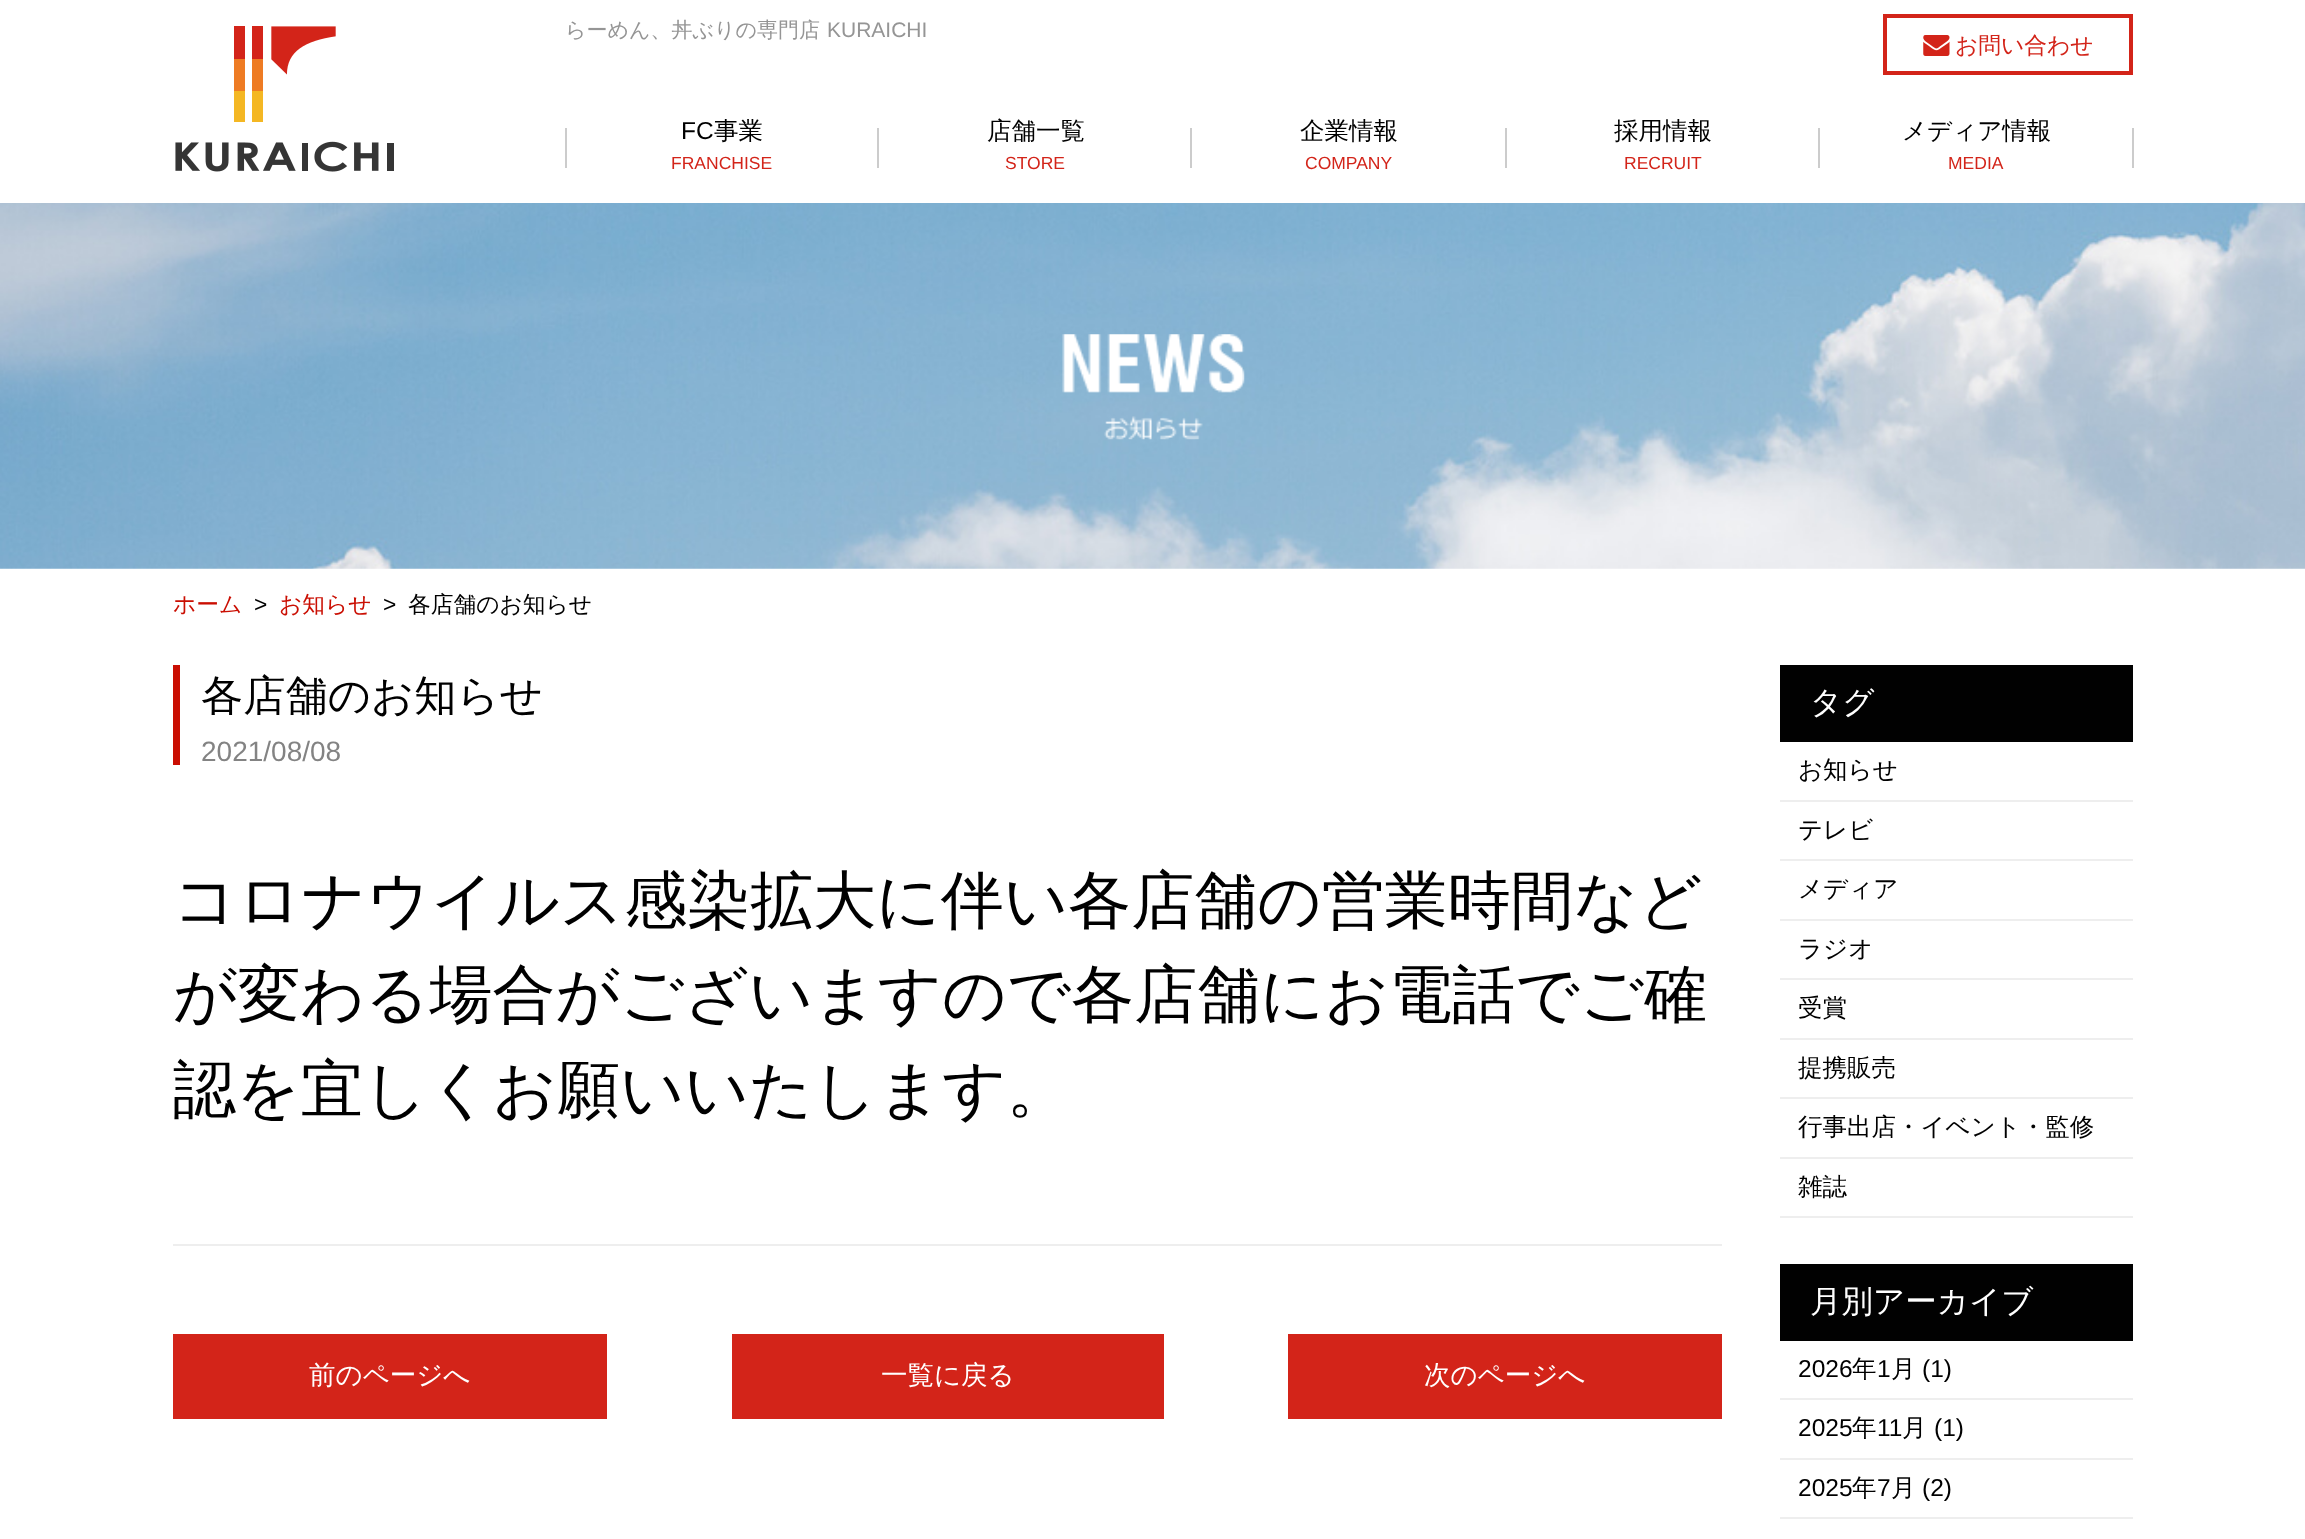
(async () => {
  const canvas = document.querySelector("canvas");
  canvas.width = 2305;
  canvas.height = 1539;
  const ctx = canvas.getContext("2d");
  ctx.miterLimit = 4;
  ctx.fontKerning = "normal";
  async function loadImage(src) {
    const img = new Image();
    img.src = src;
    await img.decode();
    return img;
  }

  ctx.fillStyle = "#ffffff";
  ctx.fillRect(0, 0, 2305, 1539);
  ctx.drawImage(await loadImage("img/1.png"), 175, 26, 219, 146);
  ctx.strokeStyle = "#d32419";
  ctx.lineWidth = 4;
  ctx.strokeRect(1885, 16, 246, 57);
  ctx.drawImage(await loadImage("img/2.png"), 1923, 35, 27, 21);
  for (const [x, y, w, h, color] of [
    [565, 128, 2, 40, "#cccccc"],
    [877, 128, 2, 40, "#cccccc"],
    [1190, 128, 2, 40, "#cccccc"],
    [1505, 128, 2, 40, "#cccccc"],
    [1818, 128, 2, 40, "#cccccc"],
    [2132, 128, 2, 40, "#cccccc"],
  ]) {
    ctx.fillStyle = color;
    ctx.fillRect(x, y, w, h);
  }
  ctx.drawImage(await loadImage("img/3.png"), 0, 203, 2305, 366);
  ctx.drawImage(await loadImage("img/4.png"), 1062, 334, 183, 106);
  for (const [x, y, w, h, color] of [
    [173, 1244, 1549, 2, "#eeeeee"],
    [173, 665, 7, 100, "#ca0e02"],
    [173, 1334, 434, 85, "#d32419"],
    [732, 1334, 432, 85, "#d32419"],
    [1288, 1334, 434, 85, "#d32419"],
    [1780, 665, 353, 77, "#010101"],
    [1780, 800, 353, 2, "#eeeeee"],
    [1780, 859, 353, 2, "#eeeeee"],
    [1780, 919, 353, 2, "#eeeeee"],
    [1780, 978, 353, 2, "#eeeeee"],
    [1780, 1038, 353, 2, "#eeeeee"],
    [1780, 1097, 353, 2, "#eeeeee"],
    [1780, 1157, 353, 2, "#eeeeee"],
    [1780, 1216, 353, 2, "#eeeeee"],
    [1780, 1264, 353, 77, "#010101"],
    [1780, 1398, 353, 2, "#eeeeee"],
    [1780, 1458, 353, 2, "#eeeeee"],
    [1780, 1517, 353, 2, "#eeeeee"],
  ]) {
    ctx.fillStyle = color;
    ctx.fillRect(x, y, w, h);
  }
  ctx.font = "500 21px WenQuanYi Zen Hei";
  ctx.fillStyle = "#959595";
  ctx.fillText("らーめん、丼ぶりの専門店", 565, 37);
  ctx.font = "21px Liberation Sans";
  ctx.fillText("KURAICHI", 827, 37);
  ctx.font = "500 22.75px WenQuanYi Zen Hei";
  ctx.fillStyle = "#d32419";
  ctx.fillText("お問い合わせ", 1955, 53);
  ctx.font = "24.5px Liberation Sans";
  ctx.fillStyle = "#000000";
  ctx.fillText("FC", 681, 139);
  ctx.font = "500 24.5px WenQuanYi Zen Hei";
  ctx.fillText("事業", 714, 139);
  ctx.font = "17.5px Liberation Sans";
  ctx.fillStyle = "#d32419";
  ctx.fillText("FRANCHISE", 671, 169);
  ctx.font = "500 24.5px WenQuanYi Zen Hei";
  ctx.fillStyle = "#000000";
  ctx.fillText("店舗一覧", 987, 139);
  ctx.font = "17.5px Liberation Sans";
  ctx.fillStyle = "#d32419";
  ctx.fillText("STORE", 1005, 169);
  ctx.font = "500 24.5px WenQuanYi Zen Hei";
  ctx.fillStyle = "#000000";
  ctx.fillText("企業情報", 1300, 139);
  ctx.font = "17.5px Liberation Sans";
  ctx.fillStyle = "#d32419";
  ctx.fillText("COMPANY", 1305, 169);
  ctx.font = "500 24.5px WenQuanYi Zen Hei";
  ctx.fillStyle = "#000000";
  ctx.fillText("採用情報", 1614, 139);
  ctx.font = "17.5px Liberation Sans";
  ctx.fillStyle = "#d32419";
  ctx.fillText("RECRUIT", 1624, 169);
  ctx.font = "500 24.5px WenQuanYi Zen Hei";
  ctx.fillStyle = "#000000";
  ctx.fillText("メディア情報", 1902, 139);
  ctx.font = "17.5px Liberation Sans";
  ctx.fillStyle = "#d32419";
  ctx.fillText("MEDIA", 1948, 169);
  ctx.font = "500 22.75px WenQuanYi Zen Hei";
  ctx.fillStyle = "#ca0e02";
  ctx.fillText("ホーム", 173, 612);
  ctx.font = "22.75px Liberation Sans";
  ctx.fillStyle = "#000000";
  ctx.fillText(">", 254, 612);
  ctx.font = "500 22.75px WenQuanYi Zen Hei";
  ctx.fillStyle = "#ca0e02";
  ctx.fillText("お知らせ", 279, 612);
  ctx.font = "22.75px Liberation Sans";
  ctx.fillStyle = "#000000";
  ctx.fillText(">", 383, 612);
  ctx.font = "500 22.75px WenQuanYi Zen Hei";
  ctx.fillText("各店舗のお知らせ", 408, 612);
  ctx.font = "500 42.25px WenQuanYi Zen Hei";
  ctx.fillText("各店舗のお知らせ", 201, 710);
  ctx.font = "28px Liberation Sans";
  ctx.fillStyle = "#838383";
  ctx.fillText("2021/08/08", 201, 761);
  ctx.font = "500 63px WenQuanYi Zen Hei";
  ctx.fillStyle = "#000000";
  for (const [text, x, y] of [
    ["コロナウイルス感染拡大に伴い各店舗の営業時間など", 173, 922],
    ["が変わる場合がございますので各店舗にお電話でご確", 173, 1016],
    ["認を宜しくお願いいたします。", 173, 1111],
  ]) {
    ctx.fillText(text, x, y);
  }
  ctx.font = "500 26.5px WenQuanYi Zen Hei";
  ctx.fillStyle = "#ffffff";
  for (const [text, x, y] of [
    ["前のページへ", 309, 1384],
    ["一覧に戻る", 881, 1384],
    ["次のページへ", 1424, 1384],
  ]) {
    ctx.fillText(text, x, y);
  }
  ctx.font = "500 31.5px WenQuanYi Zen Hei";
  ctx.fillText("タグ", 1810, 713);
  ctx.font = "500 24.5px WenQuanYi Zen Hei";
  ctx.fillStyle = "#000000";
  for (const [text, x, y] of [
    ["お知らせ", 1798, 778],
    ["テレビ", 1798, 838],
    ["メディア", 1798, 897],
    ["ラジオ", 1798, 957],
    ["受賞", 1798, 1016],
    ["提携販売", 1798, 1076],
    ["行事出店・イベント・監修", 1798, 1135],
    ["雑誌", 1798, 1195],
  ]) {
    ctx.fillText(text, x, y);
  }
  ctx.font = "500 31.5px WenQuanYi Zen Hei";
  ctx.fillStyle = "#ffffff";
  ctx.fillText("月別アーカイブ", 1810, 1312);
  ctx.font = "24.5px Liberation Sans";
  ctx.fillStyle = "#000000";
  ctx.fillText("2026", 1798, 1377);
  ctx.font = "500 24.5px WenQuanYi Zen Hei";
  ctx.fillText("年", 1852, 1377);
  ctx.font = "24.5px Liberation Sans";
  ctx.fillText("1", 1877, 1377);
  ctx.font = "500 24.5px WenQuanYi Zen Hei";
  ctx.fillText("月", 1891, 1377);
  ctx.font = "24.5px Liberation Sans";
  ctx.fillText("(1)", 1922, 1377);
  ctx.fillText("2025", 1798, 1436);
  ctx.font = "500 24.5px WenQuanYi Zen Hei";
  ctx.fillText("年", 1852, 1436);
  ctx.font = "24.5px Liberation Sans";
  ctx.fillText("11", 1877, 1436);
  ctx.font = "500 24.5px WenQuanYi Zen Hei";
  ctx.fillText("月", 1902, 1436);
  ctx.font = "24.5px Liberation Sans";
  ctx.fillText("(1)", 1934, 1436);
  ctx.fillText("2025", 1798, 1496);
  ctx.font = "500 24.5px WenQuanYi Zen Hei";
  ctx.fillText("年", 1852, 1496);
  ctx.font = "24.5px Liberation Sans";
  ctx.fillText("7", 1877, 1496);
  ctx.font = "500 24.5px WenQuanYi Zen Hei";
  ctx.fillText("月", 1891, 1496);
  ctx.font = "24.5px Liberation Sans";
  ctx.fillText("(2)", 1922, 1496);
})();
